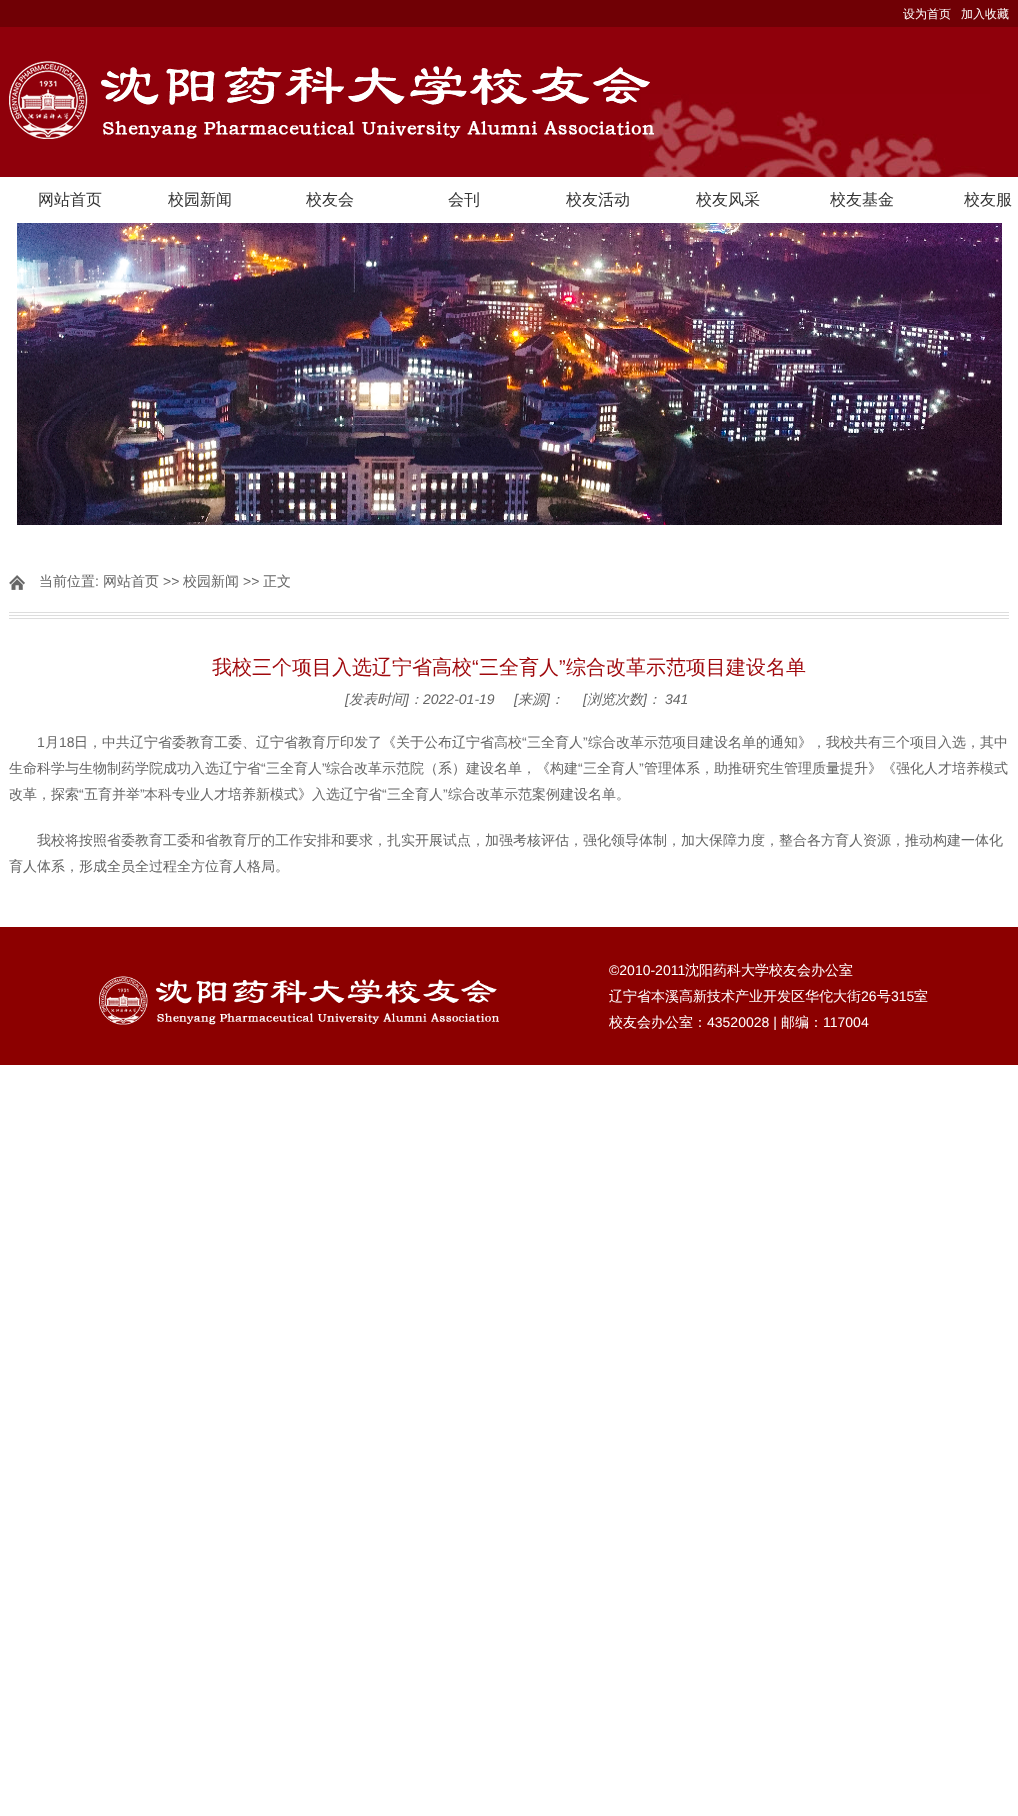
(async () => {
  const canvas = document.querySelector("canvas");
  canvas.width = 1018;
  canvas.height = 1816;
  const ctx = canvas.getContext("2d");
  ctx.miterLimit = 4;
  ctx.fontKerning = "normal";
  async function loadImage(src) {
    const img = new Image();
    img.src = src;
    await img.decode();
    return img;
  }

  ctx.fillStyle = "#ffffff";
  ctx.fillRect(0, 0, 1018, 1816);
  ctx.fillStyle = "#700005";
  ctx.fillRect(0, 0, 1018, 27);
  ctx.fillStyle = "#8f000b";
  ctx.fillRect(0, 27, 1018, 150);
  ctx.drawImage(await loadImage("img/1.png"), 641, 94, 349, 83);
  ctx.drawImage(await loadImage("img/2.png"), 9, 61, 645, 78);
  ctx.drawImage(await loadImage("img/3.png"), 17, 223, 985, 302);
  ctx.drawImage(await loadImage("img/4.png"), 9, 612, 1000, 7);
  ctx.drawImage(await loadImage("img/5.png"), 9, 575, 16, 15);
  ctx.fillStyle = "#8c0000";
  ctx.fillRect(0, 927, 1018, 138);
  ctx.drawImage(await loadImage("img/6.png"), 99, 976, 400, 49);
  ctx.font = "500 12px WenQuanYi Zen Hei";
  ctx.fillStyle = "#ffffff";
  ctx.fillText("设为首页", 903, 18);
  ctx.fillText("加入收藏", 961, 18);
  ctx.font = "500 16px WenQuanYi Zen Hei";
  ctx.fillStyle = "#333333";
  for (const [text, x, y] of [
    ["网站首页", 38, 205],
    ["校园新闻", 168, 205],
    ["校友会", 306, 205],
    ["会刊", 448, 205],
    ["校友活动", 566, 205],
    ["校友风采", 696, 205],
    ["校友基金", 830, 205],
    ["校友服", 964, 205],
  ]) {
    ctx.fillText(text, x, y);
  }
  ctx.font = "500 14px WenQuanYi Zen Hei";
  ctx.fillStyle = "#666666";
  ctx.fillText("当前位置", 39, 586);
  ctx.font = "14px Liberation Sans";
  ctx.fillText(":", 95, 586);
  ctx.font = "500 14px WenQuanYi Zen Hei";
  ctx.fillText("网站首页", 103, 586);
  ctx.font = "14px Liberation Sans";
  ctx.fillText(">>", 163, 586);
  ctx.font = "500 14px WenQuanYi Zen Hei";
  ctx.fillText("校园新闻", 183, 586);
  ctx.font = "14px Liberation Sans";
  ctx.fillText(">>", 243, 586);
  ctx.font = "500 14px WenQuanYi Zen Hei";
  ctx.fillText("正文", 263, 586);
  ctx.font = "500 20px WenQuanYi Zen Hei";
  ctx.fillStyle = "#9f080c";
  ctx.fillText("我校三个项目入选辽宁省高校", 212, 674);
  ctx.font = "20px Liberation Sans";
  ctx.fillText("“", 472, 674);
  ctx.font = "500 20px WenQuanYi Zen Hei";
  ctx.fillText("三全育人", 479, 674);
  ctx.font = "20px Liberation Sans";
  ctx.fillText("”", 559, 674);
  ctx.font = "500 20px WenQuanYi Zen Hei";
  ctx.fillText("综合改革示范项目建设名单", 566, 674);
  ctx.font = "italic 14px Liberation Sans";
  ctx.fillStyle = "#666666";
  ctx.fillText("[", 345, 704);
  ctx.font = "italic 500 14px WenQuanYi Zen Hei";
  ctx.fillText("发表时间", 349, 704);
  ctx.font = "italic 14px Liberation Sans";
  ctx.fillText("]", 405, 704);
  ctx.font = "italic 500 14px WenQuanYi Zen Hei";
  ctx.fillText("：", 409, 704);
  ctx.font = "italic 14px Liberation Sans";
  ctx.fillText("2022-01-19", 423, 704);
  ctx.fillText("[", 514, 704);
  ctx.font = "italic 500 14px WenQuanYi Zen Hei";
  ctx.fillText("来源", 518, 704);
  ctx.font = "italic 14px Liberation Sans";
  ctx.fillText("]", 546, 704);
  ctx.font = "italic 500 14px WenQuanYi Zen Hei";
  ctx.fillText("：", 550, 704);
  ctx.font = "italic 14px Liberation Sans";
  ctx.fillText("[", 583, 704);
  ctx.font = "italic 500 14px WenQuanYi Zen Hei";
  ctx.fillText("浏览次数", 587, 704);
  ctx.font = "italic 14px Liberation Sans";
  ctx.fillText("]", 643, 704);
  ctx.font = "italic 500 14px WenQuanYi Zen Hei";
  ctx.fillText("：", 647, 704);
  ctx.font = "italic 14px Liberation Sans";
  ctx.fillText("341", 665, 704);
  ctx.font = "14px Liberation Sans";
  ctx.fillText("1", 37, 747);
  ctx.font = "500 14px WenQuanYi Zen Hei";
  ctx.fillText("月", 45, 747);
  ctx.font = "14px Liberation Sans";
  ctx.fillText("18", 59, 747);
  ctx.font = "500 14px WenQuanYi Zen Hei";
  ctx.fillText("日，中共辽宁省委教育工委、辽宁省教育厅印发了《关于公布辽宁省高校", 74, 747);
  ctx.font = "14px Liberation Sans";
  ctx.fillText("“", 522, 747);
  ctx.font = "500 14px WenQuanYi Zen Hei";
  ctx.fillText("三全育人", 527, 747);
  ctx.font = "14px Liberation Sans";
  ctx.fillText("”", 583, 747);
  ctx.font = "500 14px WenQuanYi Zen Hei";
  ctx.fillText("综合改革示范项目建设名单的通知》，我校共有三个项目入选，其中", 588, 747);
  ctx.fillText("生命科学与生物制药学院成功入选辽宁省", 9, 773);
  ctx.font = "14px Liberation Sans";
  ctx.fillText("“", 261, 773);
  ctx.font = "500 14px WenQuanYi Zen Hei";
  ctx.fillText("三全育人", 266, 773);
  ctx.font = "14px Liberation Sans";
  ctx.fillText("”", 322, 773);
  ctx.font = "500 14px WenQuanYi Zen Hei";
  ctx.fillText("综合改革示范院（系）建设名单，《构建", 326, 773);
  ctx.font = "14px Liberation Sans";
  ctx.fillText("“", 578, 773);
  ctx.font = "500 14px WenQuanYi Zen Hei";
  ctx.fillText("三全育人", 583, 773);
  ctx.font = "14px Liberation Sans";
  ctx.fillText("”", 639, 773);
  ctx.font = "500 14px WenQuanYi Zen Hei";
  ctx.fillText("管理体系，助推研究生管理质量提升》《强化人才培养模式", 644, 773);
  ctx.fillText("改革，探索", 9, 799);
  ctx.font = "14px Liberation Sans";
  ctx.fillText("“", 79, 799);
  ctx.font = "500 14px WenQuanYi Zen Hei";
  ctx.fillText("五育并举", 84, 799);
  ctx.font = "14px Liberation Sans";
  ctx.fillText("”", 140, 799);
  ctx.font = "500 14px WenQuanYi Zen Hei";
  ctx.fillText("本科专业人才培养新模式》入选辽宁省", 144, 799);
  ctx.font = "14px Liberation Sans";
  ctx.fillText("“", 382, 799);
  ctx.font = "500 14px WenQuanYi Zen Hei";
  ctx.fillText("三全育人", 387, 799);
  ctx.font = "14px Liberation Sans";
  ctx.fillText("”", 443, 799);
  ctx.font = "500 14px WenQuanYi Zen Hei";
  for (const [text, x, y] of [
    ["综合改革示范案例建设名单。", 448, 799],
    ["我校将按照省委教育工委和省教育厅的工作安排和要求，扎实开展试点，加强考核评估，强化领导体制，加大保障力度，整合各方育人资源，推动构建一体化", 37, 845],
    ["育人体系，形成全员全过程全方位育人格局。", 9, 871],
  ]) {
    ctx.fillText(text, x, y);
  }
  ctx.font = "14px Liberation Sans";
  ctx.fillStyle = "#ffffff";
  ctx.fillText("©2010-2011", 609, 975);
  ctx.font = "500 14px WenQuanYi Zen Hei";
  ctx.fillText("沈阳药科大学校友会办公室", 685, 975);
  ctx.fillText("辽宁省本溪高新技术产业开发区华佗大街", 609, 1001);
  ctx.font = "14px Liberation Sans";
  ctx.fillText("26", 861, 1001);
  ctx.font = "500 14px WenQuanYi Zen Hei";
  ctx.fillText("号", 877, 1001);
  ctx.font = "14px Liberation Sans";
  ctx.fillText("315", 891, 1001);
  ctx.font = "500 14px WenQuanYi Zen Hei";
  ctx.fillText("室", 914, 1001);
  ctx.fillText("校友会办公室：", 609, 1027);
  ctx.font = "14px Liberation Sans";
  ctx.fillText("43520028 |", 707, 1027);
  ctx.font = "500 14px WenQuanYi Zen Hei";
  ctx.fillText("邮编：", 781, 1027);
  ctx.font = "14px Liberation Sans";
  ctx.fillText("117004", 823, 1027);
})();
